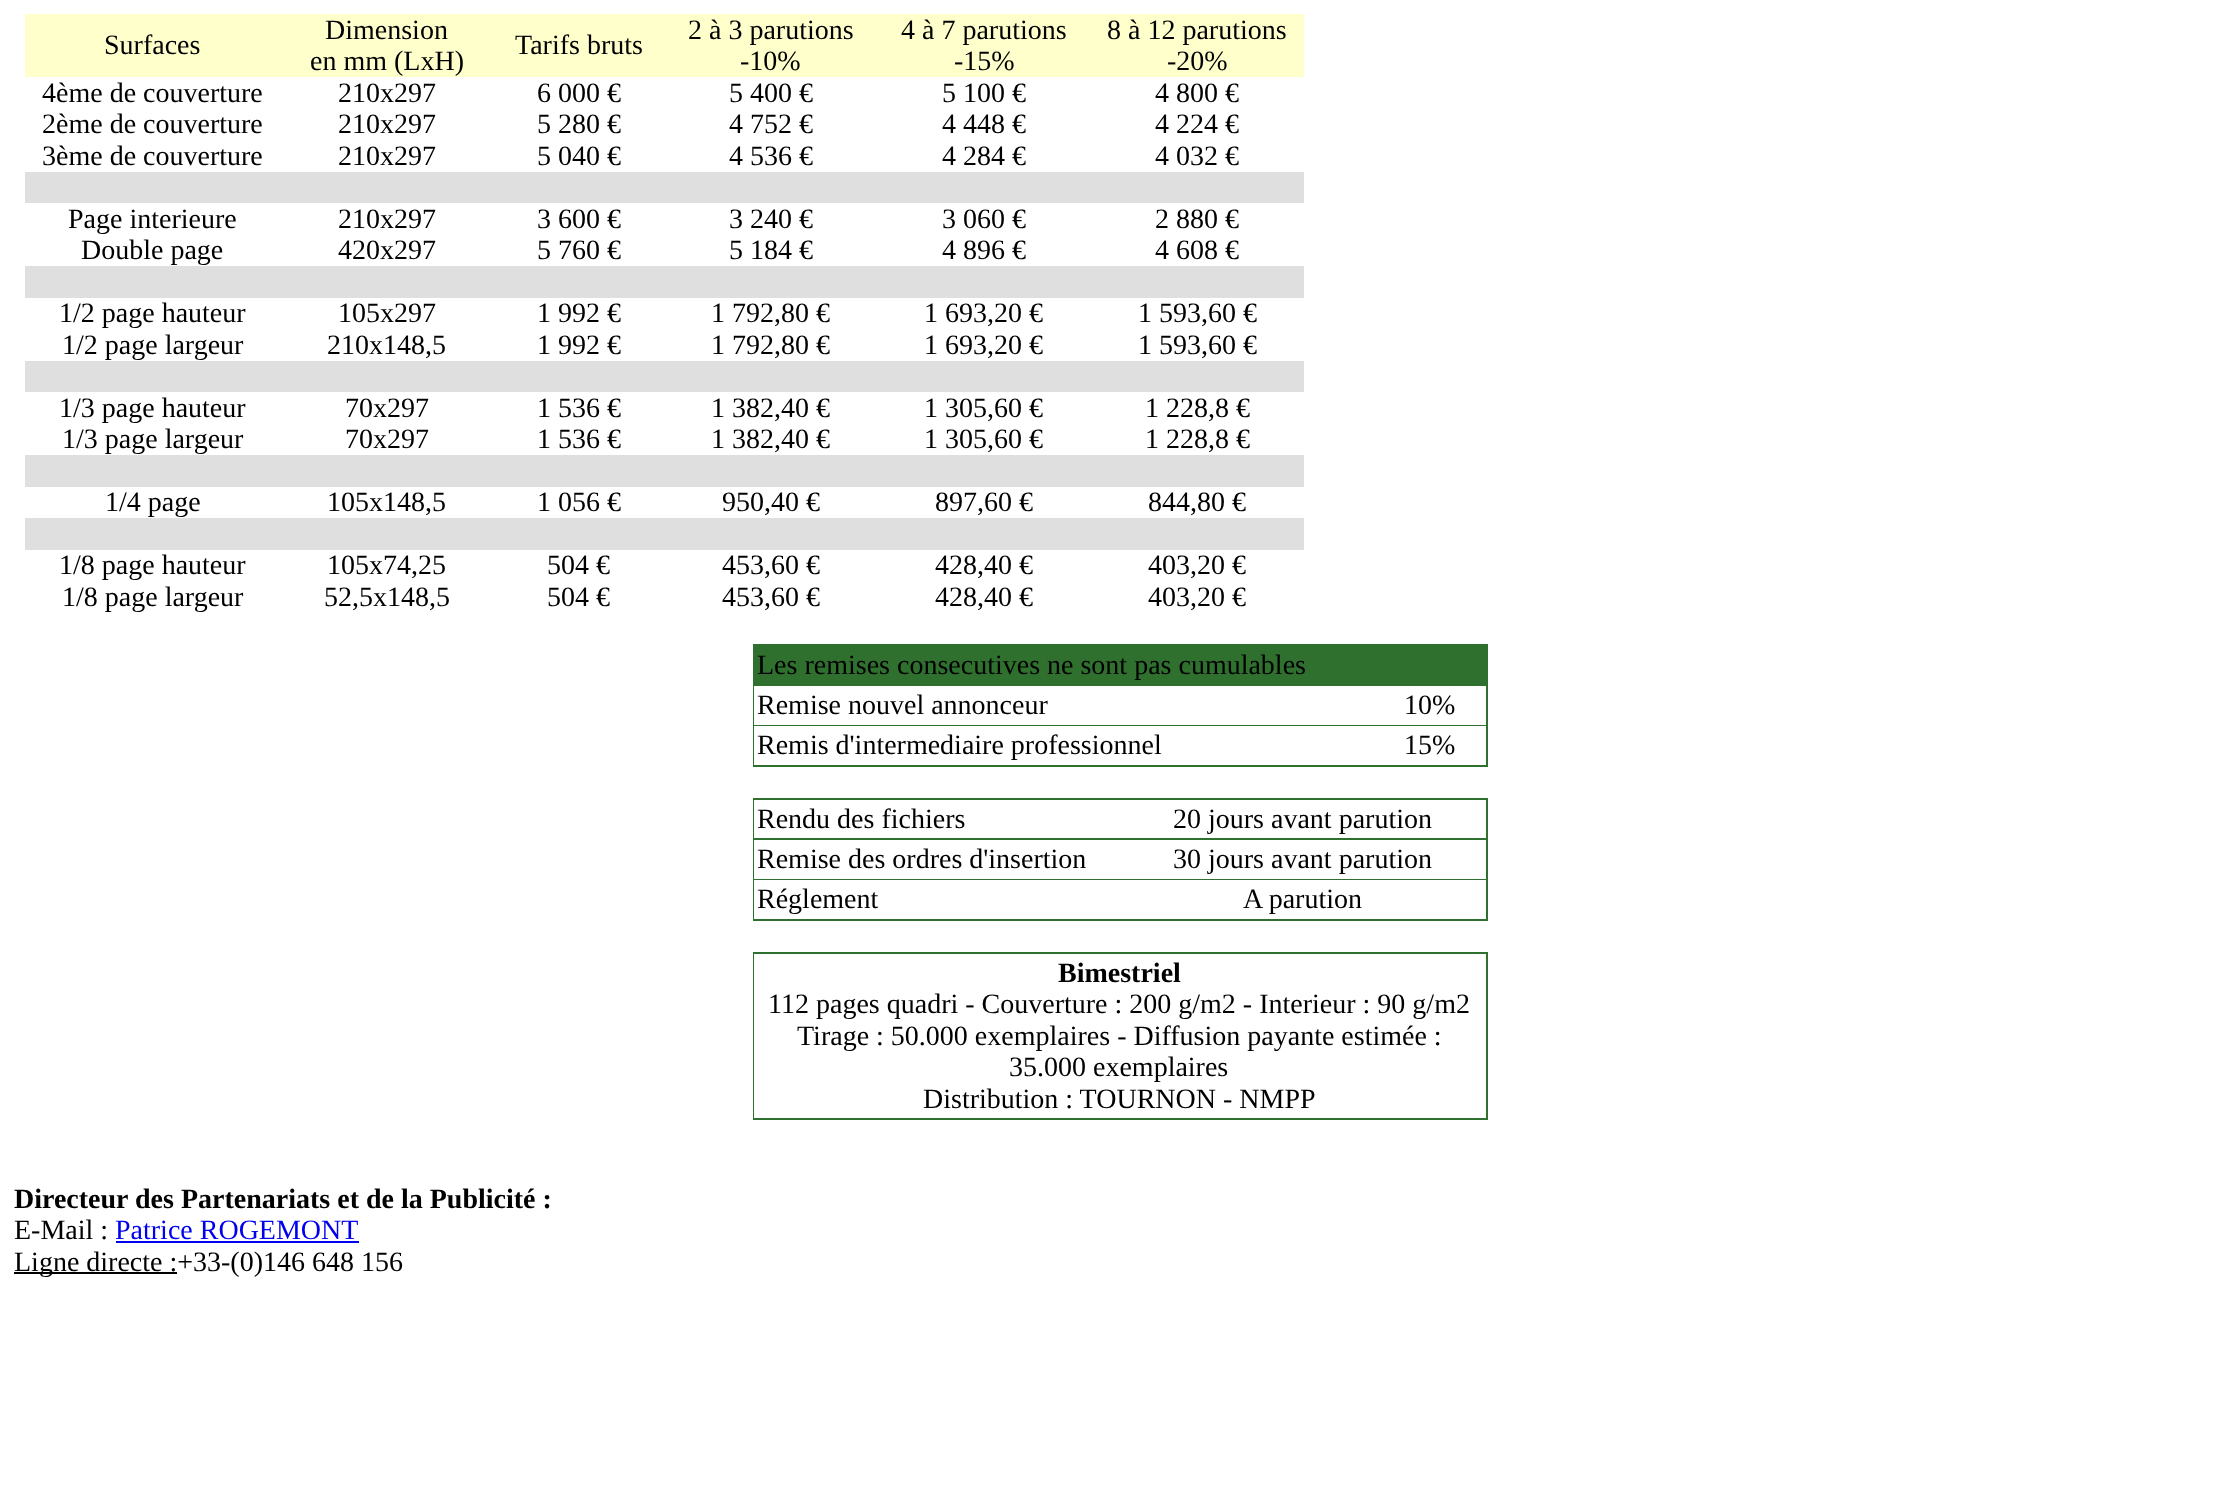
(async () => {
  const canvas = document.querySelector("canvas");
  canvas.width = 2238;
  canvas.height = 1506;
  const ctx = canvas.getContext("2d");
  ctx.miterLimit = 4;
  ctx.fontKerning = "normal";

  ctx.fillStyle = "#ffffff";
  ctx.fillRect(0, 0, 2238, 1506);
  for (const [x, y, w, h, color] of [
    [25, 14, 1279, 63, "#ffffcc"],
    [25, 172, 1279, 31, "#dfdfdf"],
    [25, 266, 1279, 32, "#dfdfdf"],
    [25, 361, 1279, 31, "#dfdfdf"],
    [25, 455, 1279, 32, "#dfdfdf"],
    [25, 518, 1279, 32, "#dfdfdf"],
    [753, 644, 735, 123, "#2f702e"],
    [754, 686, 732, 39, "#ffffff"],
    [754, 726, 732, 39, "#ffffff"],
    [753, 798, 735, 123, "#2f702e"],
    [754, 800, 732, 38, "#ffffff"],
    [754, 840, 732, 39, "#ffffff"],
    [754, 880, 732, 39, "#ffffff"],
    [753, 952, 735, 168, "#2f702e"],
    [754, 954, 732, 164, "#ffffff"],
    [116, 1241, 243, 2, "#0000ee"],
    [14, 1272, 163, 2, "#000000"],
  ]) {
    ctx.fillStyle = color;
    ctx.fillRect(x, y, w, h);
  }
  ctx.font = "28px Liberation Serif";
  for (const [text, x, y] of [
    ["Surfaces", 104, 54],
    ["Dimension", 325, 39],
    ["en mm (LxH)", 310, 70],
    ["Tarifs bruts", 515, 54],
    ["2 à 3 parutions", 688, 39],
    ["-10%", 740, 70],
    ["4 à 7 parutions", 901, 39],
    ["-15%", 954, 70],
    ["8 à 12 parutions", 1107, 39],
    ["-20%", 1167, 70],
    ["4ème de couverture", 42, 102],
    ["210x297", 338, 102],
    ["6 000 €", 537, 102],
    ["5 400 €", 729, 102],
    ["5 100 €", 942, 102],
    ["4 800 €", 1155, 102],
    ["2ème de couverture", 42, 133],
    ["210x297", 338, 133],
    ["5 280 €", 537, 133],
    ["4 752 €", 729, 133],
    ["4 448 €", 942, 133],
    ["4 224 €", 1155, 133],
    ["3ème de couverture", 42, 165],
    ["210x297", 338, 165],
    ["5 040 €", 537, 165],
    ["4 536 €", 729, 165],
    ["4 284 €", 942, 165],
    ["4 032 €", 1155, 165],
    ["Page interieure", 68, 228],
    ["210x297", 338, 228],
    ["3 600 €", 537, 228],
    ["3 240 €", 729, 228],
    ["3 060 €", 942, 228],
    ["2 880 €", 1155, 228],
    ["Double page", 81, 259],
    ["420x297", 338, 259],
    ["5 760 €", 537, 259],
    ["5 184 €", 729, 259],
    ["4 896 €", 942, 259],
    ["4 608 €", 1155, 259],
    ["1/2 page hauteur", 59, 322],
    ["105x297", 338, 322],
    ["1 992 €", 537, 322],
    ["1 792,80 €", 711, 322],
    ["1 693,20 €", 924, 322],
    ["1 593,60 €", 1138, 322],
    ["1/2 page largeur", 62, 354],
    ["210x148,5", 327, 354],
    ["1 992 €", 537, 354],
    ["1 792,80 €", 711, 354],
    ["1 693,20 €", 924, 354],
    ["1 593,60 €", 1138, 354],
    ["1/3 page hauteur", 59, 417],
    ["70x297", 345, 417],
    ["1 536 €", 537, 417],
    ["1 382,40 €", 711, 417],
    ["1 305,60 €", 924, 417],
    ["1 228,8 €", 1145, 417],
    ["1/3 page largeur", 62, 448],
    ["70x297", 345, 448],
    ["1 536 €", 537, 448],
    ["1 382,40 €", 711, 448],
    ["1 305,60 €", 924, 448],
    ["1 228,8 €", 1145, 448],
    ["1/4 page", 105, 511],
    ["105x148,5", 327, 511],
    ["1 056 €", 537, 511],
    ["950,40 €", 722, 511],
    ["897,60 €", 935, 511],
    ["844,80 €", 1148, 511],
    ["1/8 page hauteur", 59, 574],
    ["105x74,25", 327, 574],
    ["504 €", 547, 574],
    ["453,60 €", 722, 574],
    ["428,40 €", 935, 574],
    ["403,20 €", 1148, 574],
    ["1/8 page largeur", 62, 606],
    ["52,5x148,5", 324, 606],
    ["504 €", 547, 606],
    ["453,60 €", 722, 606],
    ["428,40 €", 935, 606],
    ["403,20 €", 1148, 606],
    ["Les remises consecutives ne sont pas cumulables", 757, 674],
    ["Remise nouvel annonceur", 757, 714],
    ["10%", 1404, 714],
    ["Remis d'intermediaire professionnel", 757, 754],
    ["15%", 1404, 754],
    ["Rendu des fichiers", 757, 828],
    ["20 jours avant parution", 1173, 828],
    ["Remise des ordres d'insertion", 757, 868],
    ["30 jours avant parution", 1173, 868],
    ["Réglement", 757, 908],
    ["A parution", 1243, 908],
  ]) {
    ctx.fillText(text, x, y);
  }
  ctx.font = "bold 28px Liberation Serif";
  ctx.fillText("Bimestriel", 1058, 982);
  ctx.font = "28px Liberation Serif";
  for (const [text, x, y] of [
    ["112 pages quadri - Couverture : 200 g/m2 - Interieur : 90 g/m2", 768, 1013],
    ["Tirage : 50.000 exemplaires - Diffusion payante estimée :", 797, 1045],
    ["35.000 exemplaires", 1009, 1076],
    ["Distribution : TOURNON - NMPP", 923, 1108],
  ]) {
    ctx.fillText(text, x, y);
  }
  ctx.font = "bold 28px Liberation Serif";
  ctx.fillText("Directeur des Partenariats et de la Publicité :", 14, 1208);
  ctx.font = "28px Liberation Serif";
  ctx.fillText("E-Mail :", 14, 1239);
  ctx.fillStyle = "#0000ee";
  ctx.fillText("Patrice ROGEMONT", 115, 1239);
  ctx.fillStyle = "#000000";
  ctx.fillText("Ligne directe :+33-(0)146 648 156", 14, 1271);
})();
